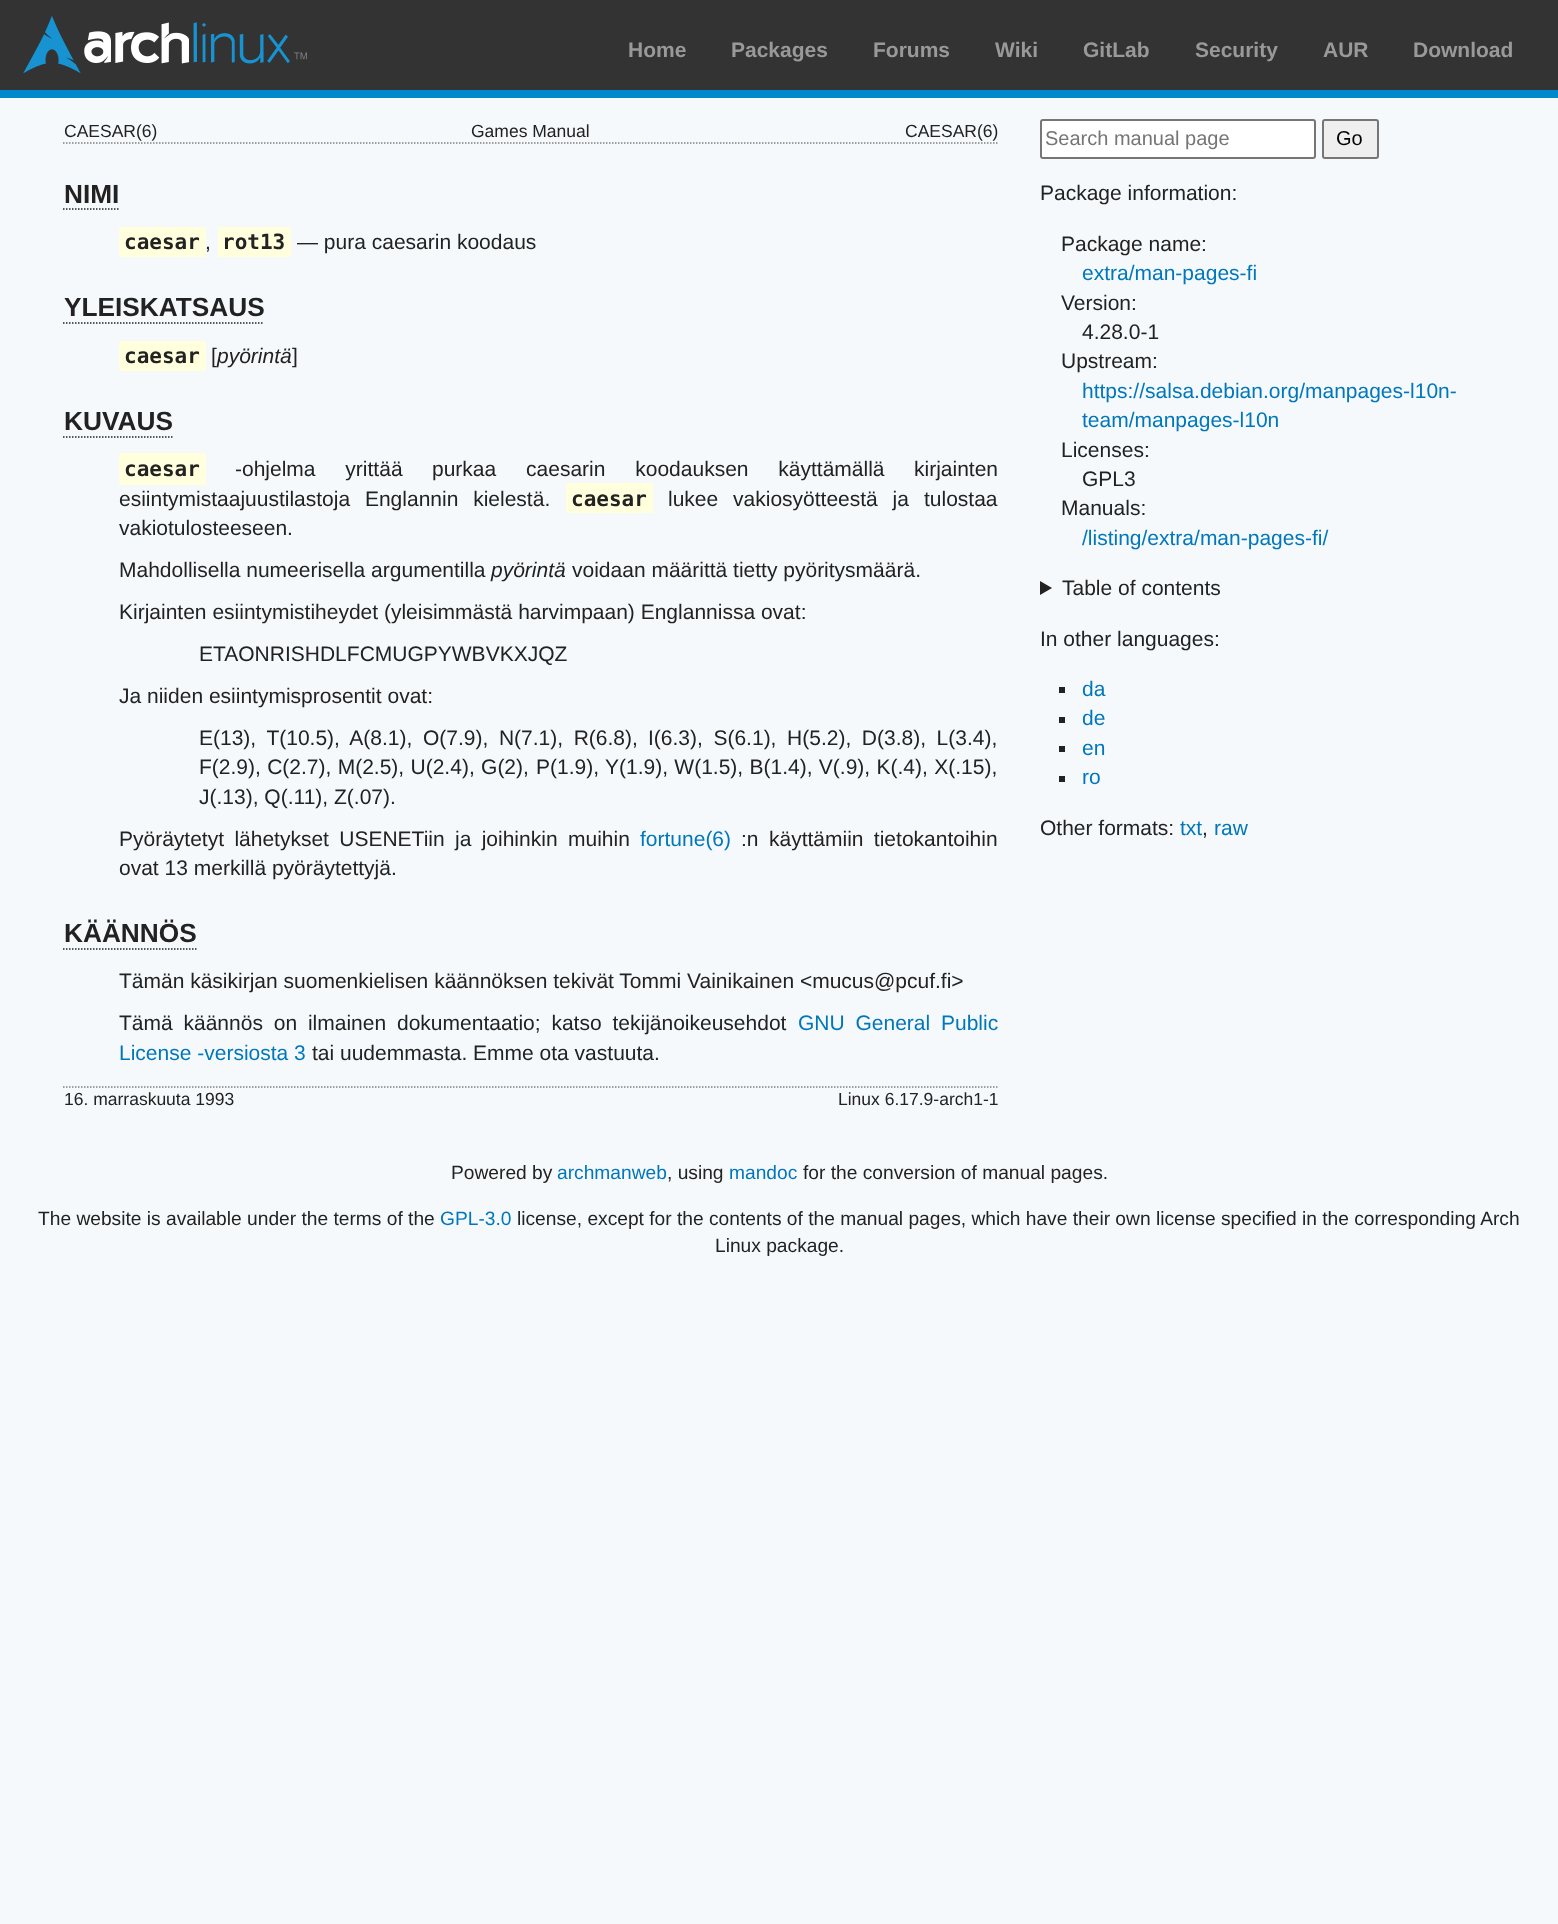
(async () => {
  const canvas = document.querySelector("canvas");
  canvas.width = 1558;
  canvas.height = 1924;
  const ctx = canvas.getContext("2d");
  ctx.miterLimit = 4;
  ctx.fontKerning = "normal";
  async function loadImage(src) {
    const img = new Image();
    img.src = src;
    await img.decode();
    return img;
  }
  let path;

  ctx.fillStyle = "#f6f9fc";
  ctx.fillRect(0, 0, 1558, 1924);
  ctx.fillStyle = "#333333";
  ctx.fillRect(0, 0, 1558, 90);
  ctx.fillStyle = "#0088cc";
  ctx.fillRect(0, 90, 1558, 8);
  ctx.drawImage(await loadImage("img/1.png"), 23, 16, 284, 58);
  path = new Path2D("M63 143H997.5");
  ctx.strokeStyle = "#808080";
  ctx.lineWidth = 1.5;
  ctx.setLineDash([1.5, 1.5]);
  ctx.stroke(path);
  path = new Path2D("M63 209H118.5");
  ctx.strokeStyle = "#222222";
  ctx.stroke(path);
  ctx.fillStyle = "#ffffdd";
  ctx.fillRect(119, 227, 87, 30);
  ctx.fillRect(218, 227, 73, 30);
  path = new Path2D("M63 323H264");
  ctx.stroke(path);
  ctx.fillRect(119, 341, 87, 30);
  path = new Path2D("M63 437H172.5");
  ctx.stroke(path);
  ctx.fillRect(119, 453, 87, 32);
  ctx.fillRect(566, 483, 87, 30);
  path = new Path2D("M63 949H196.5");
  ctx.stroke(path);
  path = new Path2D("M63 1087H997.5");
  ctx.strokeStyle = "#808080";
  ctx.stroke(path);
  ctx.fillStyle = "#ffffff";
  ctx.beginPath();
  ctx.roundRect(1041, 120, 274, 38, 2);
  ctx.fill();
  ctx.strokeStyle = "#767676";
  ctx.lineWidth = 2;
  ctx.setLineDash([]);
  ctx.stroke();
  ctx.fillStyle = "#efefef";
  ctx.beginPath();
  ctx.roundRect(1323, 120, 55, 38, 2);
  ctx.fill();
  ctx.stroke();
  ctx.fillStyle = "#222222";
  path = new Path2D("M1040 581L1052 588L1040 595Z");
  ctx.fill(path);
  for (const [x, y, w, h, color] of [
    [1059, 687, 6, 6, "#222222"],
    [1059, 717, 6, 6, "#222222"],
    [1059, 746, 6, 6, "#222222"],
    [1059, 776, 6, 6, "#222222"],
  ]) {
    ctx.fillStyle = color;
    ctx.fillRect(x, y, w, h);
  }
  ctx.font = "bold 21px Liberation Sans";
  ctx.fillStyle = "#999999";
  for (const [text, x, y] of [
    ["Home", 628, 57],
    ["Packages", 731, 57],
    ["Forums", 873, 57],
    ["Wiki", 995, 57],
    ["GitLab", 1083, 57],
    ["Security", 1195, 57],
    ["AUR", 1323, 57],
    ["Download", 1413, 57],
  ]) {
    ctx.fillText(text, x, y);
  }
  ctx.font = "17.5px Liberation Sans";
  ctx.fillStyle = "#222222";
  for (const [text, x, y] of [
    ["CAESAR(6)", 64, 137],
    ["Games Manual", 471, 137],
    ["CAESAR(6)", 905, 137],
  ]) {
    ctx.fillText(text, x, y);
  }
  ctx.font = "bold 26.25px Liberation Sans";
  ctx.fillText("NIMI", 64, 203);
  ctx.font = "bold 21px DejaVu Sans Mono";
  ctx.fillText("caesar", 124, 249);
  ctx.font = "21px Liberation Sans";
  ctx.fillText(",", 205, 249);
  ctx.font = "bold 21px DejaVu Sans Mono";
  ctx.fillText("rot13", 222, 249);
  ctx.font = "21px Liberation Sans";
  ctx.fillText("— pura caesarin koodaus", 297, 249);
  ctx.font = "bold 26.25px Liberation Sans";
  ctx.fillText("YLEISKATSAUS", 64, 316);
  ctx.font = "bold 21px DejaVu Sans Mono";
  ctx.fillText("caesar", 124, 363);
  ctx.font = "21px Liberation Sans";
  ctx.fillText("[", 211, 363);
  ctx.font = "italic 21px Liberation Sans";
  ctx.fillText("pyörintä", 217, 363);
  ctx.font = "21px Liberation Sans";
  ctx.fillText("]", 292, 363);
  ctx.font = "bold 26.25px Liberation Sans";
  ctx.fillText("KUVAUS", 64, 430);
  ctx.font = "bold 21px DejaVu Sans Mono";
  ctx.fillText("caesar", 124, 476);
  ctx.wordSpacing = "24px";
  ctx.font = "21px Liberation Sans";
  ctx.fillText("-ohjelma yrittää", 235, 476);
  ctx.fillText("purkaa caesarin koodauksen käyttämällä", 432, 476);
  ctx.wordSpacing = "0px";
  ctx.fillText("kirjainten", 914, 476);
  ctx.wordSpacing = "9px";
  ctx.fillText("esiintymistaajuustilastoja Englannin kielestä.", 119, 506);
  ctx.wordSpacing = "0px";
  ctx.font = "bold 21px DejaVu Sans Mono";
  ctx.fillText("caesar", 571, 506);
  ctx.wordSpacing = "9px";
  ctx.font = "21px Liberation Sans";
  ctx.fillText("lukee vakiosyötteestä ja", 668, 506);
  ctx.wordSpacing = "0px";
  for (const [text, x, y] of [
    ["tulostaa", 924, 506],
    ["vakiotulosteeseen.", 119, 535],
    ["Mahdollisella numeerisella argumentilla", 119, 577],
  ]) {
    ctx.fillText(text, x, y);
  }
  ctx.font = "italic 21px Liberation Sans";
  ctx.fillText("pyörintä", 491, 577);
  ctx.font = "21px Liberation Sans";
  for (const [text, x, y] of [
    ["voidaan määrittä tietty pyöritysmäärä.", 572, 577],
    ["Kirjainten esiintymistiheydet (yleisimmästä harvimpaan) Englannissa ovat:", 119, 619],
    ["ETAONRISHDLFCMUGPYWBVKXJQZ", 199, 661],
    ["Ja niiden esiintymisprosentit ovat:", 119, 703],
  ]) {
    ctx.fillText(text, x, y);
  }
  ctx.wordSpacing = "4.75px";
  ctx.fillText("E(13), T(10.5), A(8.1), O(7.9), N(7.1), R(6.8),", 199, 745);
  ctx.fillText("I(6.3), S(6.1), H(5.2), D(3.8), L(3.4),", 648, 745);
  ctx.wordSpacing = "0.5px";
  ctx.fillText("F(2.9), C(2.7), M(2.5), U(2.4), G(2),", 199, 774);
  ctx.fillText("P(1.9), Y(1.9), W(1.5), B(1.4), V(.9), K(.4), X(.15),", 536, 774);
  ctx.wordSpacing = "0px";
  ctx.fillText("J(.13), Q(.11), Z(.07).", 199, 804);
  ctx.wordSpacing = "4.5px";
  ctx.fillText("Pyöräytetyt lähetykset USENETiin ja joihinkin", 119, 846);
  ctx.wordSpacing = "0px";
  ctx.fillText("muihin", 568, 846);
  ctx.fillStyle = "#0077bb";
  ctx.fillText("fortune(6)", 640, 846);
  ctx.fillStyle = "#222222";
  ctx.fillText(":n", 741, 846);
  ctx.wordSpacing = "4.5px";
  ctx.fillText("käyttämiin tietokantoihin", 769, 846);
  ctx.wordSpacing = "0px";
  ctx.fillText("ovat 13 merkillä pyöräytettyjä.", 119, 875);
  ctx.font = "bold 26.25px Liberation Sans";
  ctx.fillText("KÄÄNNÖS", 64, 942);
  ctx.font = "21px Liberation Sans";
  ctx.fillText("Tämän käsikirjan suomenkielisen käännöksen tekivät Tommi Vainikainen <mucus@pcuf.fi>", 119, 988);
  ctx.wordSpacing = "5px";
  ctx.fillText("Tämä käännös on ilmainen", 119, 1030);
  ctx.fillText("dokumentaatio; katso tekijänoikeusehdot", 397, 1030);
  ctx.fillStyle = "#0077bb";
  ctx.fillText("GNU General", 798, 1030);
  ctx.wordSpacing = "0px";
  ctx.fillText("Public", 941, 1030);
  ctx.fillText("License -versiosta 3", 119, 1060);
  ctx.fillStyle = "#222222";
  ctx.fillText("tai uudemmasta. Emme ota vastuuta.", 312, 1060);
  ctx.font = "17.5px Liberation Sans";
  ctx.fillText("16. marraskuuta 1993", 64, 1105);
  ctx.fillText("Linux 6.17.9-arch1-1", 838, 1105);
  ctx.font = "20px Liberation Sans";
  ctx.fillStyle = "#757575";
  ctx.fillText("Search manual page", 1045, 145);
  ctx.fillStyle = "#000000";
  ctx.fillText("Go", 1336, 145);
  ctx.font = "21px Liberation Sans";
  ctx.fillStyle = "#222222";
  ctx.fillText("Package information:", 1040, 200);
  ctx.fillText("Package name:", 1061, 251);
  ctx.fillStyle = "#0077bb";
  ctx.fillText("extra/man-pages-fi", 1082, 280);
  ctx.fillStyle = "#222222";
  for (const [text, x, y] of [
    ["Version:", 1061, 310],
    ["4.28.0-1", 1082, 339],
    ["Upstream:", 1061, 368],
  ]) {
    ctx.fillText(text, x, y);
  }
  ctx.fillStyle = "#0077bb";
  ctx.fillText("https://salsa.debian.org/manpages-l10n-", 1082, 398);
  ctx.fillText("team/manpages-l10n", 1082, 427);
  ctx.fillStyle = "#222222";
  for (const [text, x, y] of [
    ["Licenses:", 1061, 457],
    ["GPL3", 1082, 486],
    ["Manuals:", 1061, 515],
  ]) {
    ctx.fillText(text, x, y);
  }
  ctx.fillStyle = "#0077bb";
  ctx.fillText("/listing/extra/man-pages-fi/", 1082, 545);
  ctx.fillStyle = "#222222";
  ctx.fillText("Table of contents", 1062, 595);
  ctx.fillText("In other languages:", 1040, 646);
  ctx.fillStyle = "#0077bb";
  for (const [text, x, y] of [
    ["da", 1082, 696],
    ["de", 1082, 725],
    ["en", 1082, 755],
    ["ro", 1082, 784],
  ]) {
    ctx.fillText(text, x, y);
  }
  ctx.fillStyle = "#222222";
  ctx.fillText("Other formats:", 1040, 835);
  ctx.fillStyle = "#0077bb";
  ctx.fillText("txt", 1180, 835);
  ctx.fillStyle = "#222222";
  ctx.fillText(",", 1202, 835);
  ctx.fillStyle = "#0077bb";
  ctx.fillText("raw", 1214, 835);
  ctx.font = "19.2px Liberation Sans";
  ctx.fillStyle = "#222222";
  ctx.fillText("Powered by", 451, 1179);
  ctx.fillStyle = "#0077bb";
  ctx.fillText("archmanweb", 557, 1179);
  ctx.fillStyle = "#222222";
  ctx.fillText(", using", 667, 1179);
  ctx.fillStyle = "#0077bb";
  ctx.fillText("mandoc", 729, 1179);
  ctx.fillStyle = "#222222";
  ctx.fillText("for the conversion of manual pages.", 803, 1179);
  ctx.fillText("The website is available under the terms of the", 38, 1225);
  ctx.fillStyle = "#0077bb";
  ctx.fillText("GPL-3.0", 440, 1225);
  ctx.fillStyle = "#222222";
  ctx.fillText("license, except for the contents of the manual pages, which have their own license specified in the corresponding Arch", 517, 1225);
  ctx.fillText("Linux package.", 715, 1252);
})();
